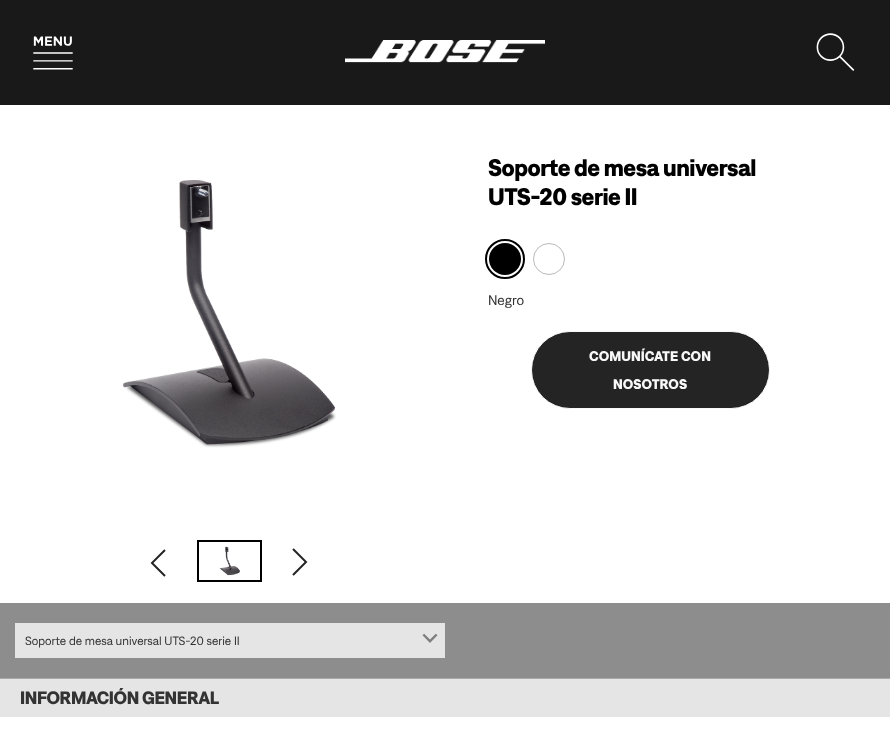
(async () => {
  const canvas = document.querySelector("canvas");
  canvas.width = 890;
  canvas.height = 729;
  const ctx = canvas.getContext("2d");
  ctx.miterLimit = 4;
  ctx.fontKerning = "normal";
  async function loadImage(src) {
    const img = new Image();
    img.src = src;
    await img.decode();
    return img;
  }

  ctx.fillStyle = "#191919";
  ctx.fillRect(0, 0, 890, 729);
  ctx.drawImage(await loadImage("img/1.png"), 33, 36, 40, 34);
  ctx.drawImage(await loadImage("img/2.png"), 345, 40, 200, 23);
  ctx.drawImage(await loadImage("img/3.png"), 816, 33, 39, 38);
  ctx.fillStyle = "#ffffff";
  ctx.fillRect(0, 105, 890, 624);
  ctx.drawImage(await loadImage("img/4.png"), 123, 180, 213, 268);
  ctx.drawImage(await loadImage("img/5.png"), 150, 549, 16, 28);
  ctx.strokeStyle = "#000000";
  ctx.lineWidth = 2;
  ctx.strokeRect(198, 541, 63, 40);
  ctx.drawImage(await loadImage("img/6.png"), 219, 546, 21, 30);
  ctx.drawImage(await loadImage("img/7.png"), 292, 548, 16, 28);
  ctx.fillStyle = "#000000";
  ctx.beginPath();
  ctx.arc(505, 259, 16, 0, Math.PI * 2);
  ctx.fill();
  ctx.beginPath();
  ctx.arc(505, 259, 19, 0, Math.PI * 2);
  ctx.stroke();
  ctx.beginPath();
  ctx.arc(549, 259, 15.5, 0, Math.PI * 2);
  ctx.strokeStyle = "#bab9b9";
  ctx.lineWidth = 1;
  ctx.stroke();
  ctx.fillStyle = "#242424";
  ctx.beginPath();
  ctx.roundRect(531.5, 331.5, 238, 77, 38.5);
  ctx.fill();
  ctx.strokeStyle = "#f8f8f8";
  ctx.stroke();
  ctx.fillStyle = "#8d8d8d";
  ctx.fillRect(0, 603, 890, 75);
  ctx.fillStyle = "#e5e5e5";
  ctx.fillRect(15, 623, 430, 35);
  ctx.drawImage(await loadImage("img/8.png"), 422, 633, 16, 10);
  ctx.fillRect(0, 679, 890, 38);
  ctx.fillStyle = "#aaaaaa";
  ctx.fillRect(0, 678, 890, 1);
  ctx.letterSpacing = "-0.5px";
  ctx.font = "bold 24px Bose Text";
  ctx.fillStyle = "#000000";
  ctx.fillText("Soporte de mesa universal", 488, 176);
  ctx.fillText("UTS-20 serie II", 488, 205);
  ctx.letterSpacing = "0px";
  ctx.font = "14px Bose Text";
  ctx.fillStyle = "#333333";
  ctx.fillText("Negro", 488, 305);
  ctx.font = "bold 14px Bose Text";
  ctx.fillStyle = "#f8f8f8";
  ctx.fillText("COMUNÍCATE CON", 589, 361);
  ctx.fillText("NOSOTROS", 613, 389);
  ctx.font = "12px Bose Text";
  ctx.fillStyle = "#333333";
  ctx.fillText("Soporte de mesa universal UTS-20 serie II", 25, 645);
  ctx.letterSpacing = "-0.4px";
  ctx.font = "bold 18px Bose Text";
  ctx.fillText("INFORMACIÓN GENERAL", 20, 704);
})();
